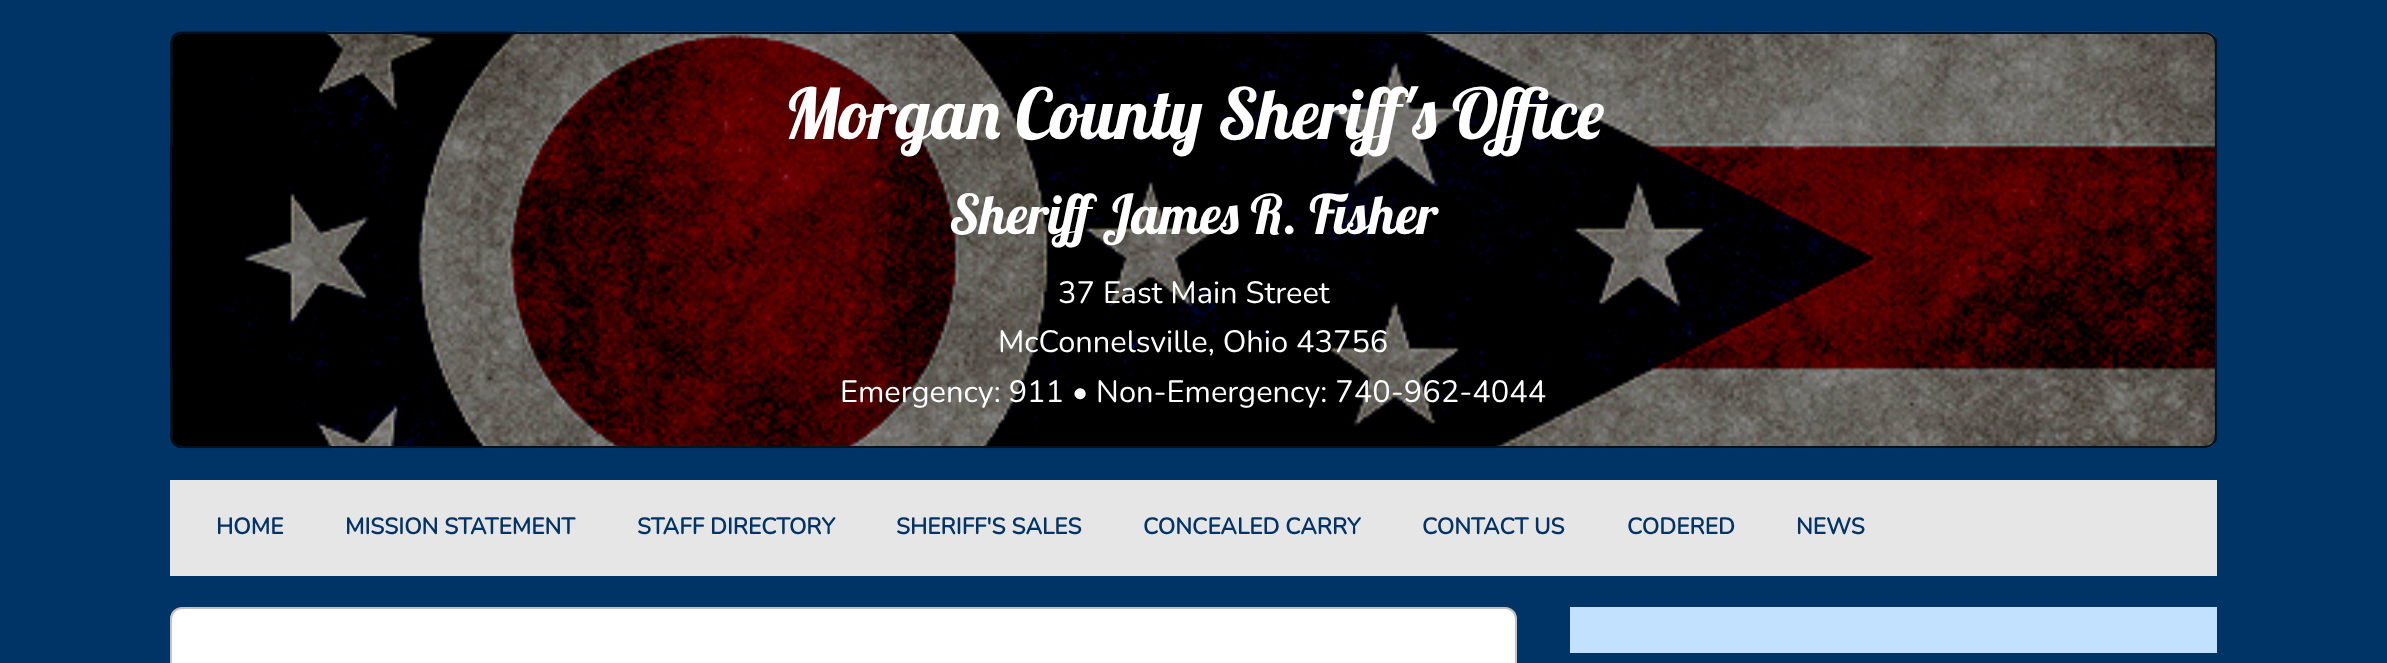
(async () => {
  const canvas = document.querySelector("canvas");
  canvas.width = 2387;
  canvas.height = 663;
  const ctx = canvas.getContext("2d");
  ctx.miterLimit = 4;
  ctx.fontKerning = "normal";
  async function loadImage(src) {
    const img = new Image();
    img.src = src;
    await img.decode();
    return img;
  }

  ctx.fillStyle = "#003366";
  ctx.fillRect(0, 0, 2387, 663);
  ctx.drawImage(await loadImage("img/1.png"), 169, 31, 2049, 418);
  ctx.beginPath();
  ctx.roundRect(171, 33, 2045, 414, 11);
  ctx.strokeStyle = "#001122";
  ctx.lineWidth = 2;
  ctx.stroke();
  ctx.fillStyle = "#e6e6e6";
  ctx.fillRect(170, 480, 2047, 96);
  ctx.fillStyle = "#ffffff";
  ctx.beginPath();
  ctx.roundRect(170, 607, 1347, 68, 12);
  ctx.fill();
  ctx.beginPath();
  ctx.roundRect(171, 608, 1345, 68, 11);
  ctx.strokeStyle = "rgba(10, 10, 10, 0.25)";
  ctx.stroke();
  ctx.fillStyle = "#c2e0ff";
  ctx.fillRect(1570, 607, 647, 46);
  ctx.font = "70px Lobster";
  ctx.fillStyle = "#fefefe";
  ctx.fillText("Morgan County Sheriff's Office", 784, 139);
  ctx.font = "54.25px Lobster";
  ctx.fillText("Sheriff James R. Fisher", 949, 234);
  ctx.font = "200 30.8px Nunito";
  for (const [text, x, y] of [
    ["37 East Main Street", 1058, 303],
    ["McConnelsville, Ohio 43756", 998, 352],
    ["Emergency: 911 • Non-Emergency: 740-962-4044", 840, 402],
  ]) {
    ctx.fillText(text, x, y);
  }
  ctx.font = "bold 22.75px Nunito";
  ctx.fillStyle = "#003366";
  for (const [text, x, y] of [
    ["HOME", 216, 534],
    ["MISSION STATEMENT", 345, 534],
    ["STAFF DIRECTORY", 637, 534],
    ["SHERIFF'S SALES", 896, 534],
    ["CONCEALED CARRY", 1143, 534],
    ["CONTACT US", 1422, 534],
    ["CODERED", 1627, 534],
    ["NEWS", 1796, 534],
  ]) {
    ctx.fillText(text, x, y);
  }
})();
